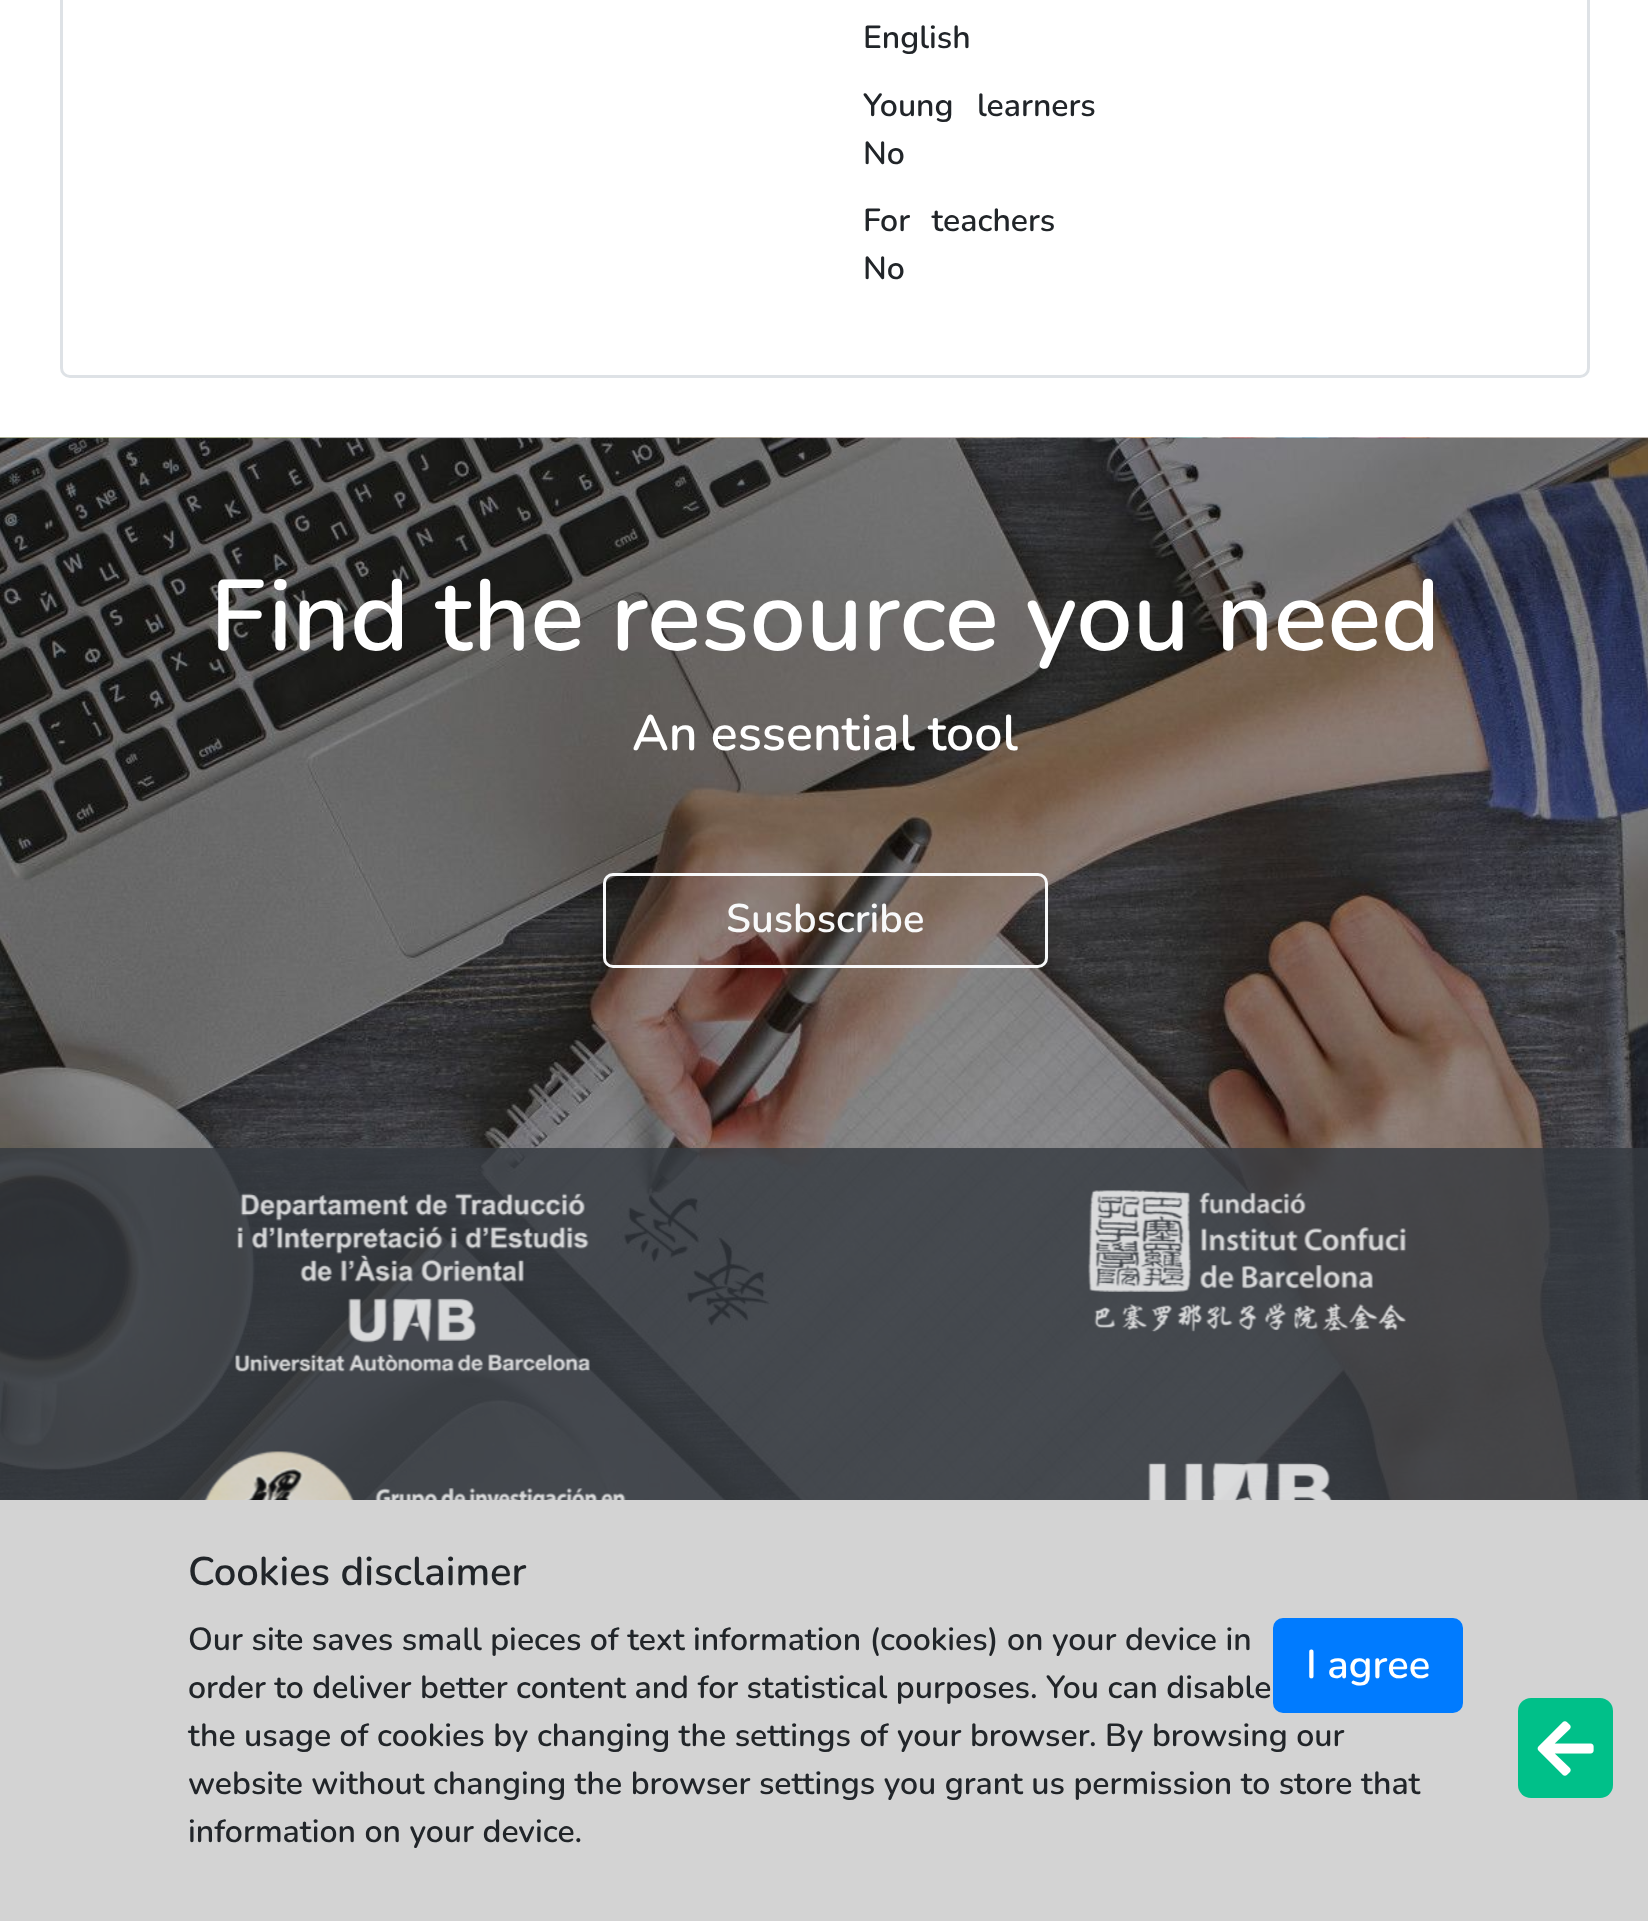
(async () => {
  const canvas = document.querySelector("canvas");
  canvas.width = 1648;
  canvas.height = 1921;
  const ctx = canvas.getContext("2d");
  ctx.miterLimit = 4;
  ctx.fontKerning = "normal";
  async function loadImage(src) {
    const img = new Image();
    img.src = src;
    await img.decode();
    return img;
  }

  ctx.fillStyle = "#ffffff";
  ctx.fillRect(0, 0, 1648, 1921);
  ctx.beginPath();
  ctx.roundRect(61.5, -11.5, 1527, 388, 8.5);
  ctx.strokeStyle = "#dee2e6";
  ctx.lineWidth = 3;
  ctx.stroke();
  ctx.fillStyle = "#d3d3d3";
  ctx.fillRect(0, 1500, 1648, 421);
  ctx.fillStyle = "#00c089";
  ctx.beginPath();
  ctx.roundRect(1518, 1698, 95, 100, 13);
  ctx.fill();
  ctx.drawImage(await loadImage("img/1.png"), 1537, 1721, 57, 55);
  ctx.drawImage(await loadImage("img/2.png"), 0, 437, 1648, 1063);
  ctx.beginPath();
  ctx.roundRect(604.5, 874.5, 442, 92, 8.5);
  ctx.strokeStyle = "#f8f9fa";
  ctx.stroke();
  ctx.fillStyle = "rgba(52, 58, 64, 0.8)";
  ctx.fillRect(0, 1148, 1648, 352);
  ctx.drawImage(await loadImage("img/3.png"), 235, 1193, 355, 179);
  ctx.drawImage(await loadImage("img/4.png"), 1088, 1190, 318, 142);
  ctx.drawImage(await loadImage("img/5.png"), 204, 1451, 422, 49);
  ctx.drawImage(await loadImage("img/6.png"), 1148, 1462, 185, 38);
  ctx.fillStyle = "#007bff";
  ctx.beginPath();
  ctx.roundRect(1274.5, 1619.5, 187, 92, 8.5);
  ctx.fill();
  ctx.strokeStyle = "#007bff";
  ctx.stroke();
  ctx.font = "600 32px Nunito";
  ctx.fillStyle = "#212529";
  ctx.fillText("English", 863, 48);
  ctx.wordSpacing = "15px";
  ctx.fillText("Young learners", 863, 116);
  ctx.wordSpacing = "0px";
  ctx.fillText("No", 863, 164);
  ctx.wordSpacing = "13px";
  ctx.fillText("For teachers", 863, 231);
  ctx.wordSpacing = "0px";
  ctx.fillText("No", 863, 279);
  ctx.font = "600 100px Nunito";
  ctx.fillStyle = "#ffffff";
  ctx.fillText("Find the resource you need", 210, 650);
  ctx.font = "600 50px Nunito";
  ctx.fillText("An essential tool", 632, 750);
  ctx.font = "600 40px Nunito";
  ctx.fillStyle = "#f8f9fa";
  ctx.fillText("Susbscribe", 726, 932);
  ctx.fillStyle = "#212529";
  ctx.fillText("Cookies disclaimer", 188, 1585);
  ctx.font = "600 32px Nunito";
  ctx.fillText("Our site saves small pieces of text information (cookies) on your device in", 188, 1650);
  ctx.font = "600 40px Nunito";
  ctx.fillStyle = "#ffffff";
  ctx.fillText("I agree", 1306, 1678);
  ctx.font = "600 32px Nunito";
  ctx.fillStyle = "#212529";
  for (const [text, x, y] of [
    ["order to deliver better content and for statistical purposes. You can disable", 188, 1698],
    ["the usage of cookies by changing the settings of your browser. By browsing our", 188, 1746],
    ["website without changing the browser settings you grant us permission to store that", 188, 1794],
    ["information on your device.", 188, 1842],
  ]) {
    ctx.fillText(text, x, y);
  }
})();
